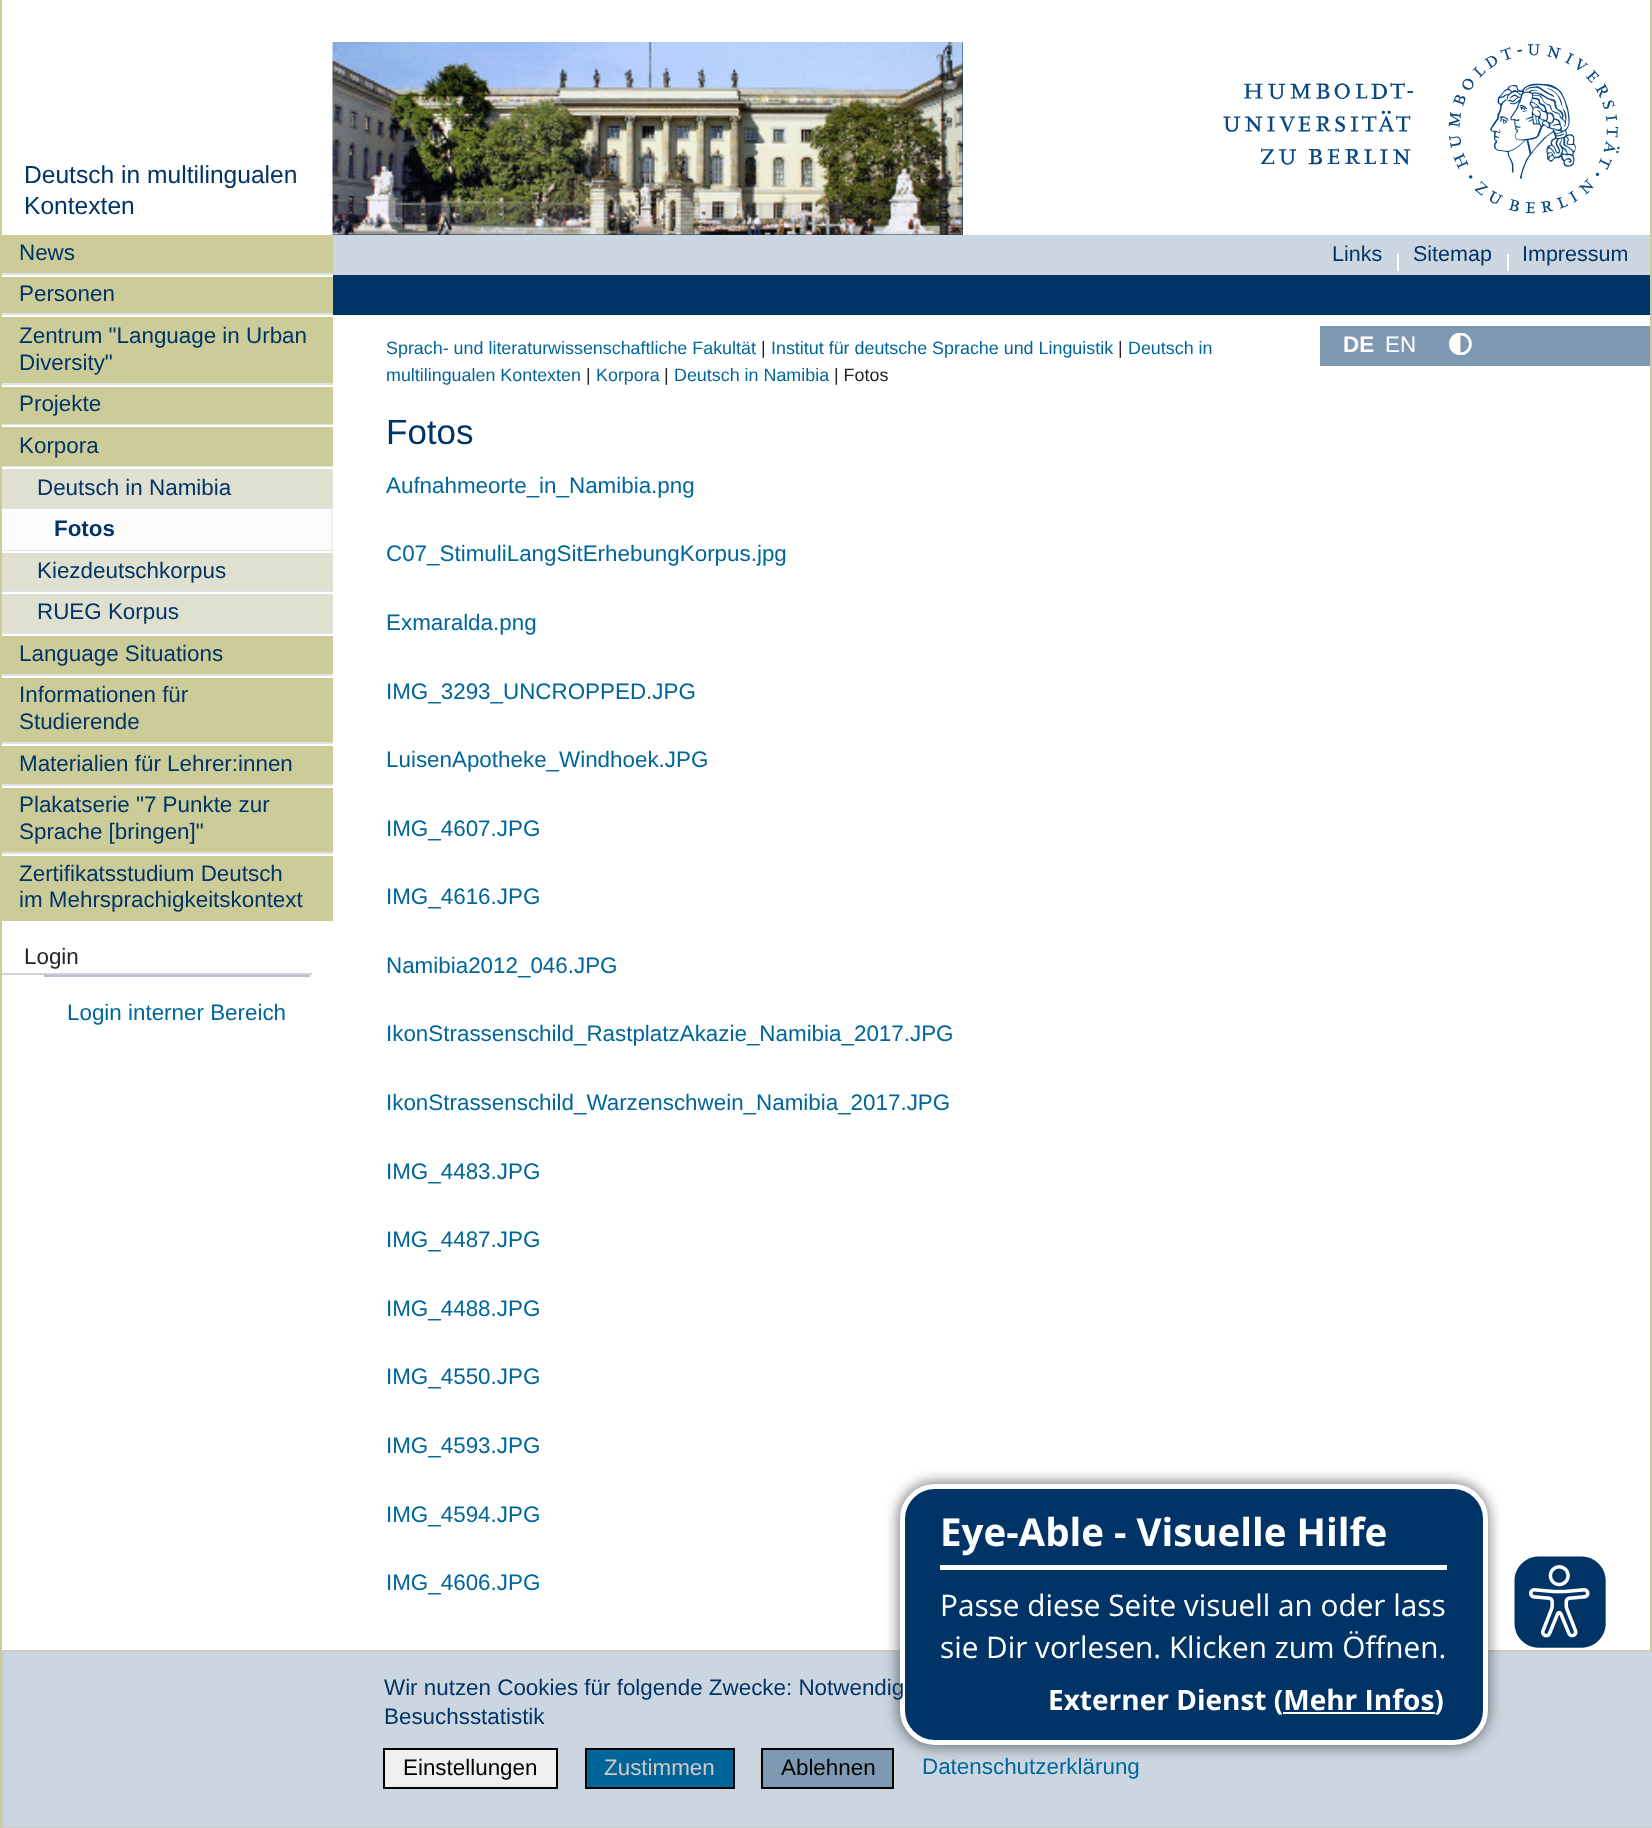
(async () => {
  const canvas = document.querySelector("canvas");
  canvas.width = 1652;
  canvas.height = 1828;
  const ctx = canvas.getContext("2d");
  ctx.miterLimit = 4;
  ctx.fontKerning = "normal";
  async function loadImage(src) {
    const img = new Image();
    img.src = src;
    await img.decode();
    return img;
  }

  ctx.fillStyle = "#ffffff";
  ctx.fillRect(0, 0, 1652, 1828);
  ctx.fillStyle = "#003366";
  ctx.fillRect(333, 42, 630, 193);
  ctx.drawImage(await loadImage("img/1.png"), 332, 42, 631, 193);
  ctx.drawImage(await loadImage("img/2.png"), 1223, 44, 397, 170);
  for (const [x, y, w, h, color] of [
    [1650, 0, 2, 1650, "#cccc99"],
    [0, 0, 2, 1828, "#cccc99"],
    [2, 235, 331, 38, "#cccc99"],
    [2, 277, 331, 36, "#cccc99"],
    [2, 273, 331, 2, "#dee2e6"],
    [2, 317, 331, 66, "#cccc99"],
    [2, 313, 331, 2, "#dee2e6"],
    [2, 387, 331, 37, "#cccc99"],
    [2, 383, 331, 2, "#dee2e6"],
    [2, 427, 331, 39, "#cccc99"],
    [2, 424, 331, 1, "#dee2e6"],
    [2, 469, 331, 39, "#e0e0d1"],
    [2, 466, 331, 1, "#dee2e6"],
    [2, 508, 331, 1, "#dee2e6"],
    [331, 508, 2, 42, "#f0f0e8"],
    [2, 511, 329, 39, "#fcfcfd"],
    [2, 553, 331, 37, "#e0e0d1"],
    [2, 550, 331, 1, "#dee2e6"],
    [2, 594, 331, 38, "#e0e0d1"],
    [2, 590, 331, 2, "#dee2e6"],
    [2, 636, 331, 38, "#cccc99"],
    [2, 632, 331, 2, "#dee2e6"],
    [2, 678, 331, 64, "#cccc99"],
    [2, 674, 331, 2, "#dee2e6"],
    [2, 746, 331, 38, "#cccc99"],
    [2, 742, 331, 2, "#dee2e6"],
    [2, 788, 331, 64, "#cccc99"],
    [2, 784, 331, 2, "#dee2e6"],
    [2, 856, 331, 65, "#cccc99"],
    [2, 852, 331, 2, "#dee2e6"],
    [2, 973, 310, 2, "#d2d2d2"],
    [44, 975, 266, 2, "#b2c1d1"],
    [333, 235, 1317, 40, "#ccd6e0"],
    [1397, 254, 2, 17, "#ffffff"],
    [1507, 254, 2, 17, "#ffffff"],
    [333, 275, 1317, 40, "#003366"],
    [1320, 326, 330, 40, "#8099b2"],
  ]) {
    ctx.fillStyle = color;
    ctx.fillRect(x, y, w, h);
  }
  ctx.drawImage(await loadImage("img/3.png"), 1449, 333, 23, 22);
  ctx.fillStyle = "#ccd6e0";
  ctx.beginPath();
  ctx.rect(3, 1651, 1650, 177);
  ctx.fill();
  ctx.strokeStyle = "#cccccc";
  ctx.lineWidth = 2;
  ctx.stroke();
  ctx.fillStyle = "#8099b2";
  ctx.beginPath();
  ctx.rect(762, 1749, 131, 39);
  ctx.fill();
  ctx.strokeStyle = "#000000";
  ctx.stroke();
  ctx.fillStyle = "rgba(0, 0, 0, 0.5)";
  ctx.filter = "blur(7px)";
  ctx.beginPath();
  ctx.roundRect(898, 1482, 591, 265, 37);
  ctx.fill();
  ctx.filter = "none";
  ctx.fillStyle = "#003366";
  ctx.beginPath();
  ctx.roundRect(902.5, 1486.5, 583, 256, 32.5);
  ctx.fill();
  ctx.strokeStyle = "#ffffff";
  ctx.lineWidth = 5;
  ctx.stroke();
  ctx.fillStyle = "#ffffff";
  ctx.fillRect(940, 1565, 507, 5);
  ctx.fillRect(1283, 1712, 152, 2);
  ctx.drawImage(await loadImage("img/4.png"), 1514, 1556, 92, 92);
  ctx.fillStyle = "#efefef";
  ctx.beginPath();
  ctx.rect(384, 1749, 173, 39);
  ctx.fill();
  ctx.strokeStyle = "#000000";
  ctx.lineWidth = 2;
  ctx.stroke();
  ctx.fillStyle = "#006699";
  ctx.beginPath();
  ctx.rect(586, 1749, 148, 39);
  ctx.fill();
  ctx.stroke();
  ctx.font = "24.6px Liberation Sans";
  ctx.fillStyle = "#003366";
  ctx.fillText("Deutsch in multilingualen", 24, 183);
  ctx.fillText("Kontexten", 24, 214);
  ctx.font = "22.4px Liberation Sans";
  for (const [text, x, y] of [
    ["News", 19, 260],
    ["Personen", 19, 301],
    ["Zentrum \"Language in Urban", 19, 343],
    ["Diversity\"", 19, 370],
    ["Projekte", 19, 411],
    ["Korpora", 19, 453],
    ["Deutsch in Namibia", 37, 495],
  ]) {
    ctx.fillText(text, x, y);
  }
  ctx.font = "bold 22.4px Liberation Sans";
  ctx.fillText("Fotos", 54, 536);
  ctx.font = "22.4px Liberation Sans";
  for (const [text, x, y] of [
    ["Kiezdeutschkorpus", 37, 578],
    ["RUEG Korpus", 37, 619],
    ["Language Situations", 19, 661],
    ["Informationen für", 19, 702],
    ["Studierende", 19, 729],
    ["Materialien für Lehrer:innen", 19, 771],
    ["Plakatserie \"7 Punkte zur", 19, 812],
    ["Sprache [bringen]\"", 19, 839],
    ["Zertifikatsstudium Deutsch", 19, 881],
    ["im Mehrsprachigkeitskontext", 19, 907],
  ]) {
    ctx.fillText(text, x, y);
  }
  ctx.fillStyle = "#212529";
  ctx.fillText("Login", 24, 964);
  ctx.fillStyle = "#006699";
  ctx.fillText("Login interner Bereich", 67, 1020);
  ctx.font = "21.5px Liberation Sans";
  ctx.fillStyle = "#003366";
  for (const [text, x, y] of [
    ["Links", 1332, 261],
    ["Sitemap", 1413, 261],
    ["Impressum", 1522, 261],
  ]) {
    ctx.fillText(text, x, y);
  }
  ctx.font = "17.9px Liberation Sans";
  ctx.fillStyle = "#006699";
  ctx.fillText("Sprach- und literaturwissenschaftliche Fakultät", 386, 354);
  ctx.fillStyle = "#212529";
  ctx.fillText("|", 761, 354);
  ctx.fillStyle = "#006699";
  ctx.fillText("Institut für deutsche Sprache und Linguistik", 771, 354);
  ctx.fillStyle = "#212529";
  ctx.fillText("|", 1118, 354);
  ctx.fillStyle = "#006699";
  ctx.fillText("Deutsch in", 1128, 354);
  ctx.fillText("multilingualen Kontexten", 386, 381);
  ctx.fillStyle = "#212529";
  ctx.fillText("|", 586, 381);
  ctx.fillStyle = "#006699";
  ctx.fillText("Korpora", 596, 381);
  ctx.fillStyle = "#212529";
  ctx.fillText("|", 664, 381);
  ctx.fillStyle = "#006699";
  ctx.fillText("Deutsch in Namibia", 674, 381);
  ctx.fillStyle = "#212529";
  ctx.fillText("| Fotos", 834, 381);
  ctx.font = "35px Liberation Sans";
  ctx.fillStyle = "#003366";
  ctx.fillText("Fotos", 386, 444);
  ctx.font = "22.4px Liberation Sans";
  ctx.fillStyle = "#006699";
  for (const [text, x, y] of [
    ["Aufnahmeorte_in_Namibia.png", 386, 493],
    ["C07_StimuliLangSitErhebungKorpus.jpg", 386, 561],
    ["Exmaralda.png", 386, 630],
    ["IMG_3293_UNCROPPED.JPG", 386, 699],
    ["LuisenApotheke_Windhoek.JPG", 386, 767],
    ["IMG_4607.JPG", 386, 836],
    ["IMG_4616.JPG", 386, 904],
    ["Namibia2012_046.JPG", 386, 973],
    ["IkonStrassenschild_RastplatzAkazie_Namibia_2017.JPG", 386, 1041],
    ["IkonStrassenschild_Warzenschwein_Namibia_2017.JPG", 386, 1110],
    ["IMG_4483.JPG", 386, 1179],
    ["IMG_4487.JPG", 386, 1247],
    ["IMG_4488.JPG", 386, 1316],
    ["IMG_4550.JPG", 386, 1384],
    ["IMG_4593.JPG", 386, 1453],
    ["IMG_4594.JPG", 386, 1522],
    ["IMG_4606.JPG", 386, 1590],
  ]) {
    ctx.fillText(text, x, y);
  }
  ctx.font = "bold 22.4px Liberation Sans";
  ctx.fillStyle = "#ffffff";
  ctx.fillText("DE", 1343, 352);
  ctx.font = "22.4px Liberation Sans";
  ctx.fillText("EN", 1385, 352);
  ctx.font = "bold 38.5px Open Sans";
  ctx.fillText("Eye-Able - Visuelle Hilfe", 940, 1546);
  ctx.font = "29.75px Open Sans";
  ctx.fillText("Passe diese Seite visuell an oder lass", 940, 1616);
  ctx.fillText("sie Dir vorlesen. Klicken zum Öffnen.", 940, 1658);
  ctx.font = "bold 28px Open Sans";
  ctx.fillText("Externer Dienst (Mehr Infos)", 1048, 1710);
  ctx.font = "22.4px Liberation Sans";
  ctx.fillStyle = "#003366";
  ctx.fillText("Wir nutzen Cookies für folgende Zwecke: Notwendig", 384, 1695);
  ctx.fillText("Besuchsstatistik", 384, 1724);
  ctx.fillStyle = "#000000";
  ctx.fillText("Einstellungen", 403, 1775);
  ctx.fillStyle = "#d5c7c7";
  ctx.fillText("Zustimmen", 604, 1775);
  ctx.fillStyle = "#000000";
  ctx.fillText("Ablehnen", 781, 1775);
  ctx.fillStyle = "#006699";
  ctx.fillText("Datenschutzerklärung", 922, 1774);
})();
